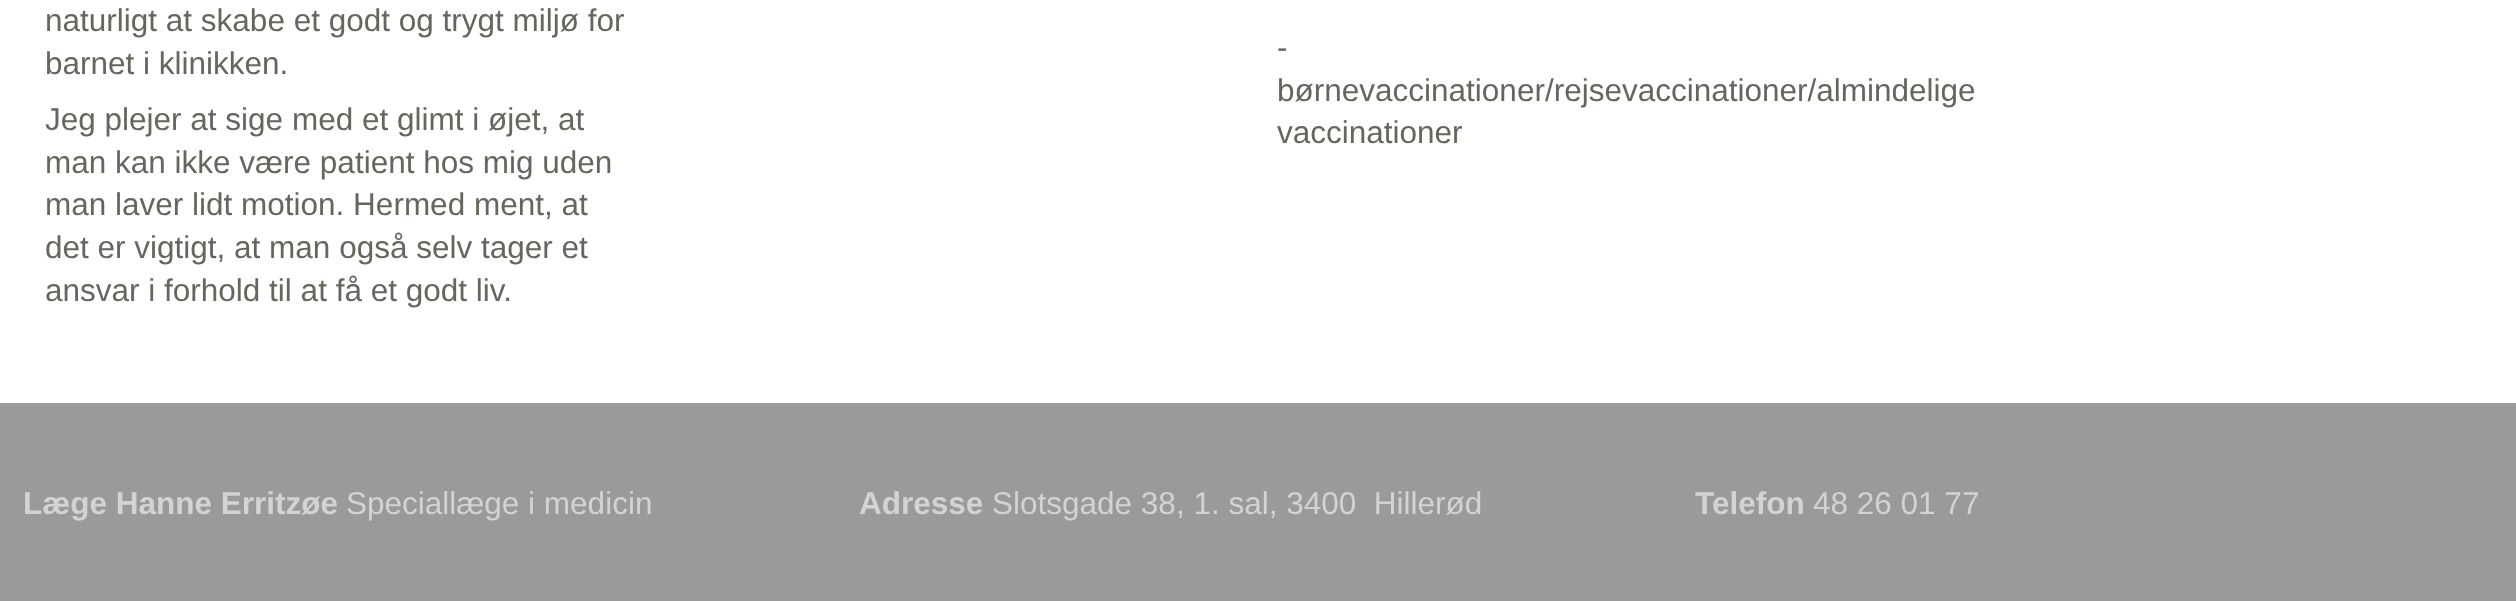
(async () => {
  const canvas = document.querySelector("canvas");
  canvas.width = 2516;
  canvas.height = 601;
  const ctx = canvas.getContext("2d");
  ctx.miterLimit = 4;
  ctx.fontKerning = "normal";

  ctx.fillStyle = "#ffffff";
  ctx.fillRect(0, 0, 2516, 601);
  ctx.fillStyle = "#9a9a9a";
  ctx.fillRect(0, 403, 2516, 198);
  ctx.font = "31.5px Liberation Sans";
  ctx.fillStyle = "#66665e";
  for (const [text, x, y] of [
    ["naturligt at skabe et godt og trygt miljø for", 45, 31],
    ["barnet i klinikken.", 45, 74],
    ["Jeg plejer at sige med et glimt i øjet, at", 45, 130],
    ["man kan ikke være patient hos mig uden", 45, 173],
    ["man laver lidt motion. Hermed ment, at", 45, 215],
    ["det er vigtigt, at man også selv tager et", 45, 258],
    ["ansvar i forhold til at få et godt liv.", 45, 301],
    ["-", 1277, 58],
    ["børnevaccinationer/rejsevaccinationer/almindelige", 1277, 101],
    ["vaccinationer", 1277, 143],
  ]) {
    ctx.fillText(text, x, y);
  }
  ctx.font = "bold 31.5px Liberation Sans";
  ctx.fillStyle = "#d3d3d3";
  ctx.fillText("Læge Hanne Erritzøe", 23, 514);
  ctx.font = "31.5px Liberation Sans";
  ctx.fillText("Speciallæge i medicin", 346, 514);
  ctx.font = "bold 31.5px Liberation Sans";
  ctx.fillText("Adresse", 859, 514);
  ctx.font = "31.5px Liberation Sans";
  ctx.fillText("Slotsgade 38, 1. sal, 3400  Hillerød", 992, 514);
  ctx.font = "bold 31.5px Liberation Sans";
  ctx.fillText("Telefon", 1695, 514);
  ctx.font = "31.5px Liberation Sans";
  ctx.fillText("48 26 01 77", 1813, 514);
})();
